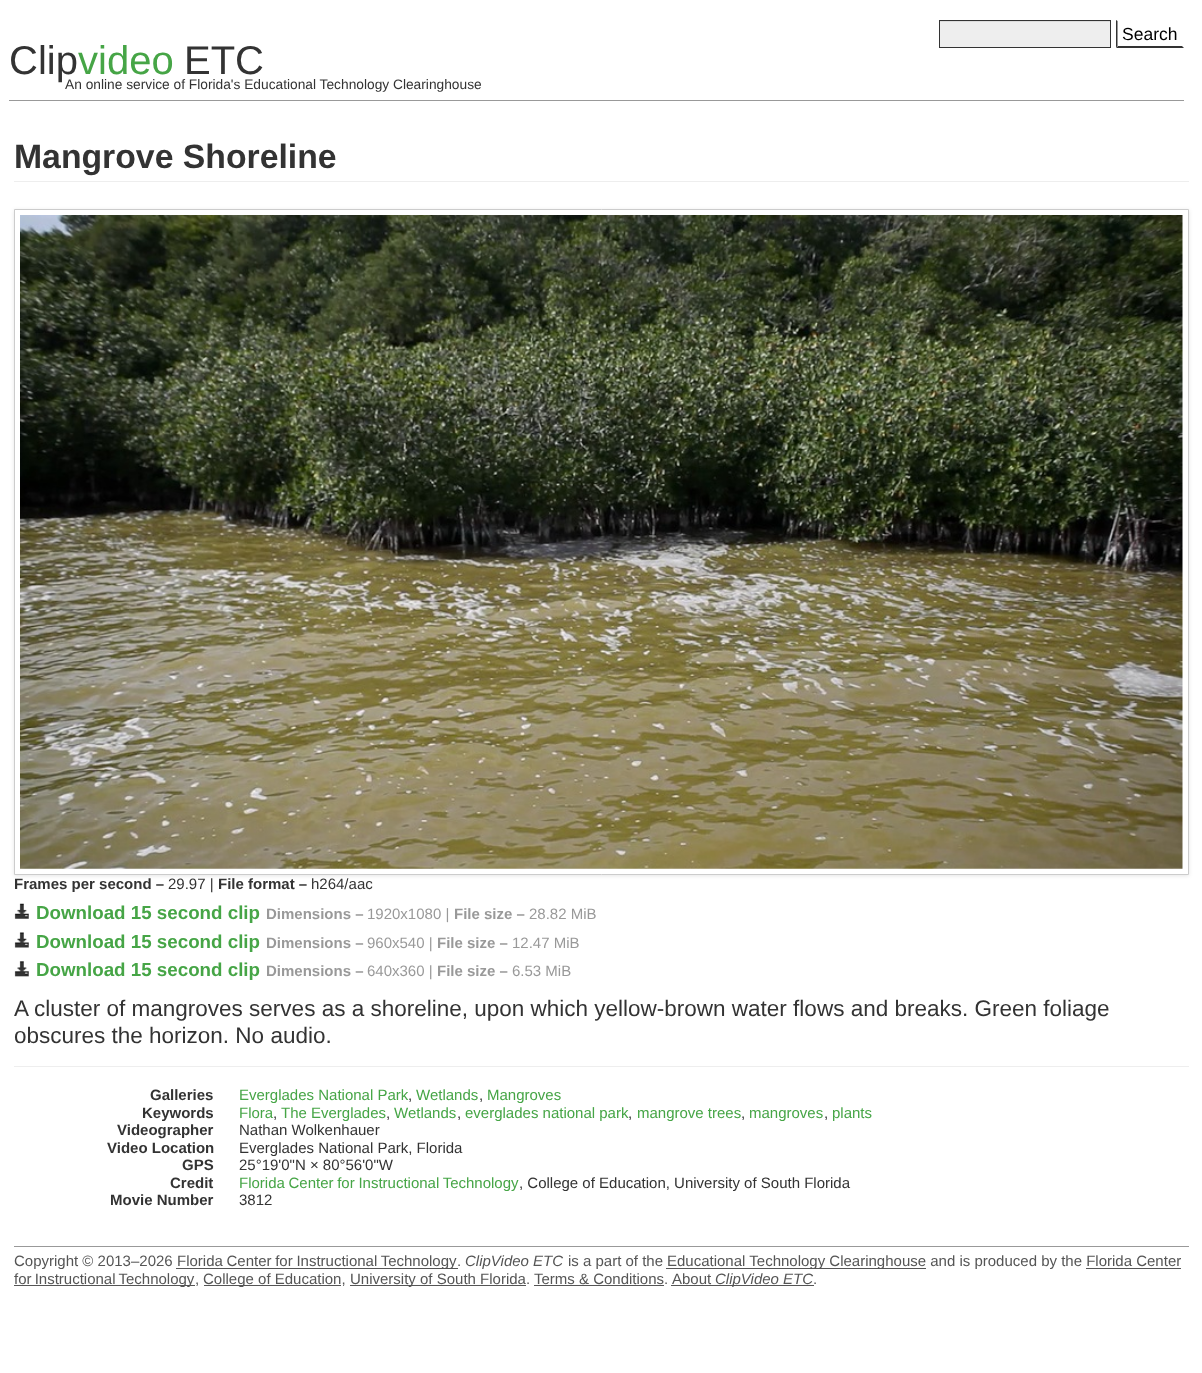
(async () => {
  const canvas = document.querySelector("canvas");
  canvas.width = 1202;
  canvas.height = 1373;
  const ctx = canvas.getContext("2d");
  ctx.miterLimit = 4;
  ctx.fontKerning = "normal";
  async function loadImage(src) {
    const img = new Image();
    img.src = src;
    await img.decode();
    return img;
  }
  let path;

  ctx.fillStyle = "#ffffff";
  ctx.fillRect(0, 0, 1202, 1373);
  for (const [x, y, w, h, color] of [
    [9, 100, 1175, 1, "#999999"],
    [940, 22, 170, 25, "#eeeeee"],
    [940, 21, 170, 1, "#dcdcdc"],
  ]) {
    ctx.fillStyle = color;
    ctx.fillRect(x, y, w, h);
  }
  ctx.strokeStyle = "#333333";
  ctx.strokeRect(939.5, 20.5, 171, 27);
  ctx.fillStyle = "#333333";
  path = new Path2D("M1184 48H1116L1118 46H1182Z");
  ctx.fill(path);
  path = new Path2D("M1116 47.5V20L1117.5 21V46Z");
  ctx.fill(path);
  ctx.fillStyle = "#eeeeee";
  ctx.fillRect(14, 181, 1175, 1);
  ctx.fillStyle = "rgba(0, 0, 0, 0.1)";
  ctx.filter = "blur(2px)";
  ctx.beginPath();
  ctx.rect(14, 210, 1175, 666);
  ctx.fill();
  ctx.filter = "none";
  ctx.fillStyle = "#ffffff";
  ctx.beginPath();
  ctx.rect(14.5, 209.5, 1174, 665);
  ctx.fill();
  ctx.strokeStyle = "#cccccc";
  ctx.stroke();
  ctx.drawImage(await loadImage("img/1.png"), 20, 215, 1163, 654);
  ctx.drawImage(await loadImage("img/2.png"), 14, 903, 15, 16);
  ctx.drawImage(await loadImage("img/3.png"), 14, 932, 15, 16);
  ctx.drawImage(await loadImage("img/4.png"), 14, 961, 15, 16);
  for (const [x, y, w, h, color] of [
    [14, 1066, 1175, 1, "#eeeeee"],
    [14, 1246, 1175, 1, "#999999"],
    [176, 1268, 282, 1, "#555555"],
    [666, 1268, 260, 1, "#555555"],
    [1086, 1268, 95, 1, "#555555"],
    [14, 1285, 181, 1, "#555555"],
    [204, 1285, 137, 1, "#555555"],
    [350, 1285, 176, 1, "#555555"],
    [671, 1285, 143, 1, "#555555"],
    [534, 1285, 130, 1, "#555555"],
  ]) {
    ctx.fillStyle = color;
    ctx.fillRect(x, y, w, h);
  }
  ctx.font = "17.5px Liberation Sans";
  ctx.fillStyle = "#000000";
  ctx.fillText("Search", 1122, 40);
  ctx.font = "40px Liberation Sans";
  ctx.fillStyle = "#333333";
  ctx.fillText("Clip", 9, 74);
  ctx.fillStyle = "#46a546";
  ctx.fillText("video", 78, 74);
  ctx.fillStyle = "#333333";
  ctx.fillText("ETC", 184, 74);
  ctx.font = "13.75px Liberation Sans";
  ctx.fillText("An online service of Florida's Educational Technology Clearinghouse", 65, 89);
  ctx.font = "bold 33.75px Liberation Sans";
  ctx.fillText("Mangrove Shoreline", 14, 168);
  ctx.font = "bold 15px Liberation Sans";
  ctx.fillText("Frames per second –", 14, 889);
  ctx.font = "15px Liberation Sans";
  ctx.fillText("29.97 |", 168, 889);
  ctx.font = "bold 15px Liberation Sans";
  ctx.fillText("File format –", 218, 889);
  ctx.font = "15px Liberation Sans";
  ctx.fillText("h264/aac", 311, 889);
  ctx.font = "bold 18.75px Liberation Sans";
  ctx.fillStyle = "#46a546";
  ctx.fillText("Download 15 second clip", 36, 919);
  ctx.font = "bold 15px Liberation Sans";
  ctx.fillStyle = "#999999";
  ctx.fillText("Dimensions –", 266, 919);
  ctx.font = "15px Liberation Sans";
  ctx.fillText("1920x1080 |", 367, 919);
  ctx.font = "bold 15px Liberation Sans";
  ctx.fillText("File size –", 454, 919);
  ctx.font = "15px Liberation Sans";
  ctx.fillText("28.82 MiB", 529, 919);
  ctx.font = "bold 18.75px Liberation Sans";
  ctx.fillStyle = "#46a546";
  ctx.fillText("Download 15 second clip", 36, 948);
  ctx.font = "bold 15px Liberation Sans";
  ctx.fillStyle = "#999999";
  ctx.fillText("Dimensions –", 266, 948);
  ctx.font = "15px Liberation Sans";
  ctx.fillText("960x540 |", 367, 948);
  ctx.font = "bold 15px Liberation Sans";
  ctx.fillText("File size –", 437, 948);
  ctx.font = "15px Liberation Sans";
  ctx.fillText("12.47 MiB", 512, 948);
  ctx.font = "bold 18.75px Liberation Sans";
  ctx.fillStyle = "#46a546";
  ctx.fillText("Download 15 second clip", 36, 976);
  ctx.font = "bold 15px Liberation Sans";
  ctx.fillStyle = "#999999";
  ctx.fillText("Dimensions –", 266, 976);
  ctx.font = "15px Liberation Sans";
  ctx.fillText("640x360 |", 367, 976);
  ctx.font = "bold 15px Liberation Sans";
  ctx.fillText("File size –", 437, 976);
  ctx.font = "15px Liberation Sans";
  ctx.fillText("6.53 MiB", 512, 976);
  ctx.font = "22.5px Liberation Sans";
  ctx.fillStyle = "#333333";
  ctx.fillText("A cluster of mangroves serves as a shoreline, upon which yellow-brown water flows and breaks. Green foliage", 14, 1016);
  ctx.fillText("obscures the horizon. No audio.", 14, 1043);
  ctx.font = "bold 15px Liberation Sans";
  ctx.fillText("Galleries", 150, 1100);
  ctx.font = "15px Liberation Sans";
  ctx.fillStyle = "#46a546";
  ctx.fillText("Everglades National Park", 239, 1100);
  ctx.fillStyle = "#333333";
  ctx.fillText(",", 408, 1100);
  ctx.fillStyle = "#46a546";
  ctx.fillText("Wetlands", 416, 1100);
  ctx.fillStyle = "#333333";
  ctx.fillText(",", 479, 1100);
  ctx.fillStyle = "#46a546";
  ctx.fillText("Mangroves", 487, 1100);
  ctx.font = "bold 15px Liberation Sans";
  ctx.fillStyle = "#333333";
  ctx.fillText("Keywords", 142, 1118);
  ctx.font = "15px Liberation Sans";
  ctx.fillStyle = "#46a546";
  ctx.fillText("Flora", 239, 1118);
  ctx.fillStyle = "#333333";
  ctx.fillText(",", 273, 1118);
  ctx.fillStyle = "#46a546";
  ctx.fillText("The Everglades", 281, 1118);
  ctx.fillStyle = "#333333";
  ctx.fillText(",", 386, 1118);
  ctx.fillStyle = "#46a546";
  ctx.fillText("Wetlands", 394, 1118);
  ctx.fillStyle = "#333333";
  ctx.fillText(",", 457, 1118);
  ctx.fillStyle = "#46a546";
  ctx.fillText("everglades national park", 465, 1118);
  ctx.fillStyle = "#333333";
  ctx.fillText(",", 628, 1118);
  ctx.fillStyle = "#46a546";
  ctx.fillText("mangrove trees", 637, 1118);
  ctx.fillStyle = "#333333";
  ctx.fillText(",", 741, 1118);
  ctx.fillStyle = "#46a546";
  ctx.fillText("mangroves", 749, 1118);
  ctx.fillStyle = "#333333";
  ctx.fillText(",", 824, 1118);
  ctx.fillStyle = "#46a546";
  ctx.fillText("plants", 832, 1118);
  ctx.font = "bold 15px Liberation Sans";
  ctx.fillStyle = "#333333";
  ctx.fillText("Videographer", 117, 1135);
  ctx.font = "15px Liberation Sans";
  ctx.fillText("Nathan Wolkenhauer", 239, 1135);
  ctx.font = "bold 15px Liberation Sans";
  ctx.fillText("Video Location", 107, 1153);
  ctx.font = "15px Liberation Sans";
  ctx.fillText("Everglades National Park, Florida", 239, 1153);
  ctx.font = "bold 15px Liberation Sans";
  ctx.fillText("GPS", 182, 1170);
  ctx.font = "15px Liberation Sans";
  ctx.fillText("25°19'0\"N × 80°56'0\"W", 239, 1170);
  ctx.font = "bold 15px Liberation Sans";
  ctx.fillText("Credit", 170, 1188);
  ctx.wordSpacing = "-0.5px";
  ctx.font = "15px Liberation Sans";
  ctx.fillStyle = "#46a546";
  ctx.fillText("Florida Center for Instructional Technology", 239, 1188);
  ctx.wordSpacing = "0px";
  ctx.fillStyle = "#333333";
  ctx.fillText(", College of Education, University of South Florida", 519, 1188);
  ctx.font = "bold 15px Liberation Sans";
  ctx.fillText("Movie Number", 110, 1205);
  ctx.font = "15px Liberation Sans";
  ctx.fillText("3812", 239, 1205);
  ctx.fillStyle = "#555555";
  ctx.fillText("Copyright © 2013–2026", 14, 1266);
  ctx.wordSpacing = "-0.5px";
  ctx.fillText("Florida Center for Instructional Technology", 177, 1266);
  ctx.wordSpacing = "0px";
  ctx.fillText(".", 457, 1266);
  ctx.font = "italic 15px Liberation Sans";
  ctx.fillText("ClipVideo ETC", 465, 1266);
  ctx.font = "15px Liberation Sans";
  ctx.fillText("is a part of the", 568, 1266);
  ctx.fillText("Educational Technology Clearinghouse and is produced by the Florida Center", 667, 1266);
  ctx.wordSpacing = "-1px";
  ctx.fillText("for Instructional Technology", 14, 1284);
  ctx.wordSpacing = "0px";
  for (const [text, x, y] of [
    [",", 195, 1284],
    ["College of Education,", 203, 1284],
    ["University of South Florida. Terms & Conditions.", 350, 1284],
    ["About", 672, 1284],
  ]) {
    ctx.fillText(text, x, y);
  }
  ctx.font = "italic 15px Liberation Sans";
  ctx.fillText("ClipVideo ETC", 715, 1284);
  ctx.font = "15px Liberation Sans";
  ctx.fillText(".", 813, 1284);
})();
